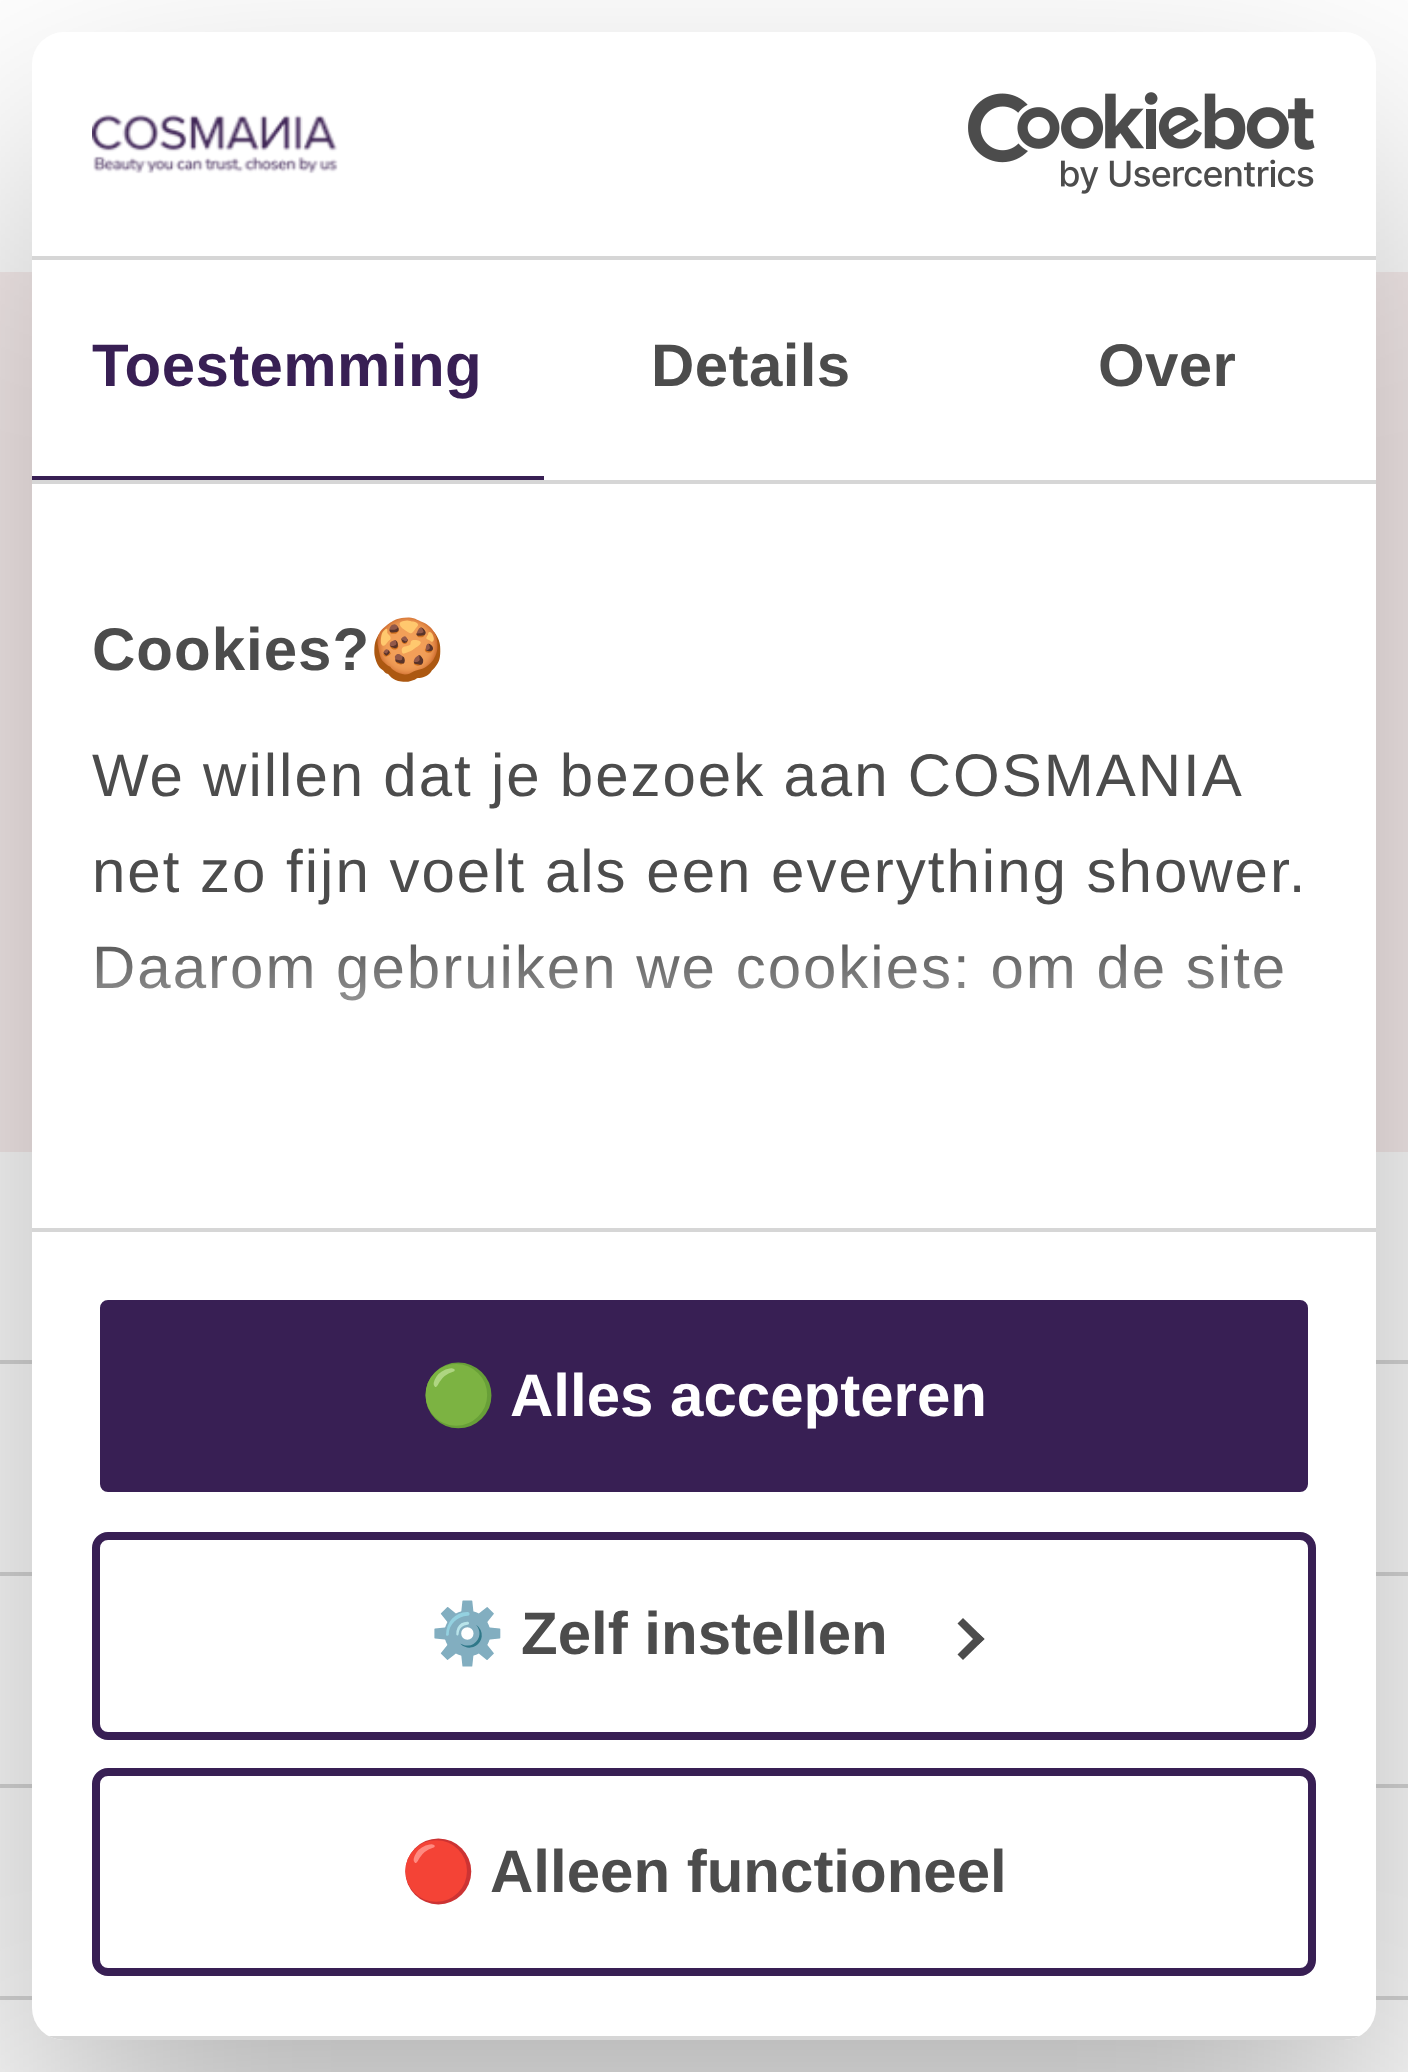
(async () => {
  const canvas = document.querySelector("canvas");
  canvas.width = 1408;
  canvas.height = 2072;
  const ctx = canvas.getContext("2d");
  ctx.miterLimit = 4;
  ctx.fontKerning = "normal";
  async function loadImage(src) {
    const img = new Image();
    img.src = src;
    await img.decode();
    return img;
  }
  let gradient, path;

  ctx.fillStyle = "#ffffff";
  ctx.fillRect(0, 0, 1408, 2072);
  for (const [x, y, w, h, color] of [
    [0, 272, 1408, 880, "#f8eeee"],
    [0, 1360, 1408, 4, "#d9d9d9"],
    [0, 1572, 1408, 4, "#d9d9d9"],
    [0, 1784, 1408, 4, "#d9d9d9"],
    [0, 1996, 1408, 4, "#d9d9d9"],
  ]) {
    ctx.fillStyle = color;
    ctx.fillRect(x, y, w, h);
  }
  ctx.fillStyle = "rgba(0, 0, 0, 0.3)";
  ctx.filter = "blur(136px)";
  ctx.beginPath();
  ctx.roundRect(32, 160, 1344, 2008, 32);
  ctx.fill();
  ctx.filter = "none";
  ctx.fillStyle = "#ffffff";
  ctx.beginPath();
  ctx.roundRect(32, 32, 1344, 2008, 32);
  ctx.fill();
  ctx.fillStyle = "#d6d6d6";
  ctx.fillRect(32, 256, 1344, 4);
  ctx.drawImage(await loadImage("img/1.png"), 92, 114, 246, 60);
  ctx.drawImage(await loadImage("img/2.png"), 968, 92, 347, 102);
  for (const [x, y, w, h, color] of [
    [32, 480, 1344, 4, "#d6d6d6"],
    [32, 476, 512, 4, "#381f54"],
    [32, 1228, 1344, 4, "#d6d6d6"],
  ]) {
    ctx.fillStyle = color;
    ctx.fillRect(x, y, w, h);
  }
  ctx.save();
  ctx.beginPath();
  ctx.roundRect(32, 32, 1344, 2008, 32);
  ctx.clip();
  ctx.fillRect(48, 2036, 1312, 4);
  ctx.restore();
  ctx.fillStyle = "#381f54";
  ctx.beginPath();
  ctx.roundRect(96, 1296, 1216, 200, 12);
  ctx.fill();
  ctx.strokeStyle = "#ffffff";
  ctx.lineWidth = 8;
  ctx.stroke();
  ctx.beginPath();
  ctx.roundRect(96, 1536, 1216, 200, 12);
  ctx.strokeStyle = "#381f54";
  ctx.stroke();
  ctx.fillStyle = "#4c4c4c";
  path = new Path2D("M963 1618L984.5 1639L978.5 1644.5L957.5 1623.5Z");
  ctx.fill(path);
  path = new Path2D("M978.5 1633.5L984.5 1639L963 1660L957.5 1654.5Z");
  ctx.fill(path);
  ctx.beginPath();
  ctx.roundRect(96, 1772, 1216, 200, 12);
  ctx.stroke();
  ctx.letterSpacing = "0.4px";
  ctx.font = "bold 60px Liberation Sans";
  ctx.fillStyle = "#381f54";
  ctx.fillText("Toestemming", 92, 386);
  ctx.fillStyle = "#4c4c4c";
  ctx.fillText("Details", 651, 386);
  ctx.fillText("Over", 1098, 386);
  ctx.letterSpacing = "1px";
  ctx.fillText("Cookies?", 92, 670);
  ctx.font = "bold 60px Noto Color Emoji";
  ctx.fillText("🍪", 370, 670);
  ctx.letterSpacing = "2px";
  ctx.wordSpacing = "-0.5px";
  ctx.font = "60px Liberation Sans";
  ctx.fillText("We willen dat je bezoek aan COSMANIA", 92, 796);
  ctx.wordSpacing = "0px";
  ctx.fillText("net zo fijn voelt als een everything shower.", 92, 892);
  ctx.fillText("Daarom gebruiken we cookies: om de site", 92, 988);
  gradient = ctx.createLinearGradient(678, 1228, 678, 928);
  gradient.addColorStop(0, "#ffffff");
  gradient.addColorStop(0.5, "rgba(255, 255, 255, 0.8)");
  gradient.addColorStop(1, "rgba(255, 255, 255, 0)");
  ctx.fillStyle = gradient;
  ctx.fillRect(96, 944, 1187, 57);
  ctx.letterSpacing = "0px";
  ctx.font = "bold 60px Noto Color Emoji";
  ctx.fillStyle = "#ffffff";
  ctx.fillText("🟢", 421, 1416);
  ctx.font = "bold 60px Liberation Sans";
  ctx.fillText("Alles accepteren", 510, 1416);
  ctx.font = "bold 60px Noto Color Emoji";
  ctx.fillStyle = "#4c4c4c";
  ctx.fillText("⚙️", 430, 1654);
  ctx.font = "bold 60px Liberation Sans";
  ctx.fillText("Zelf instellen", 521, 1654);
  ctx.font = "bold 60px Noto Color Emoji";
  ctx.fillText("🔴", 401, 1892);
  ctx.font = "bold 60px Liberation Sans";
  ctx.fillText("Alleen functioneel", 490, 1892);
})();
